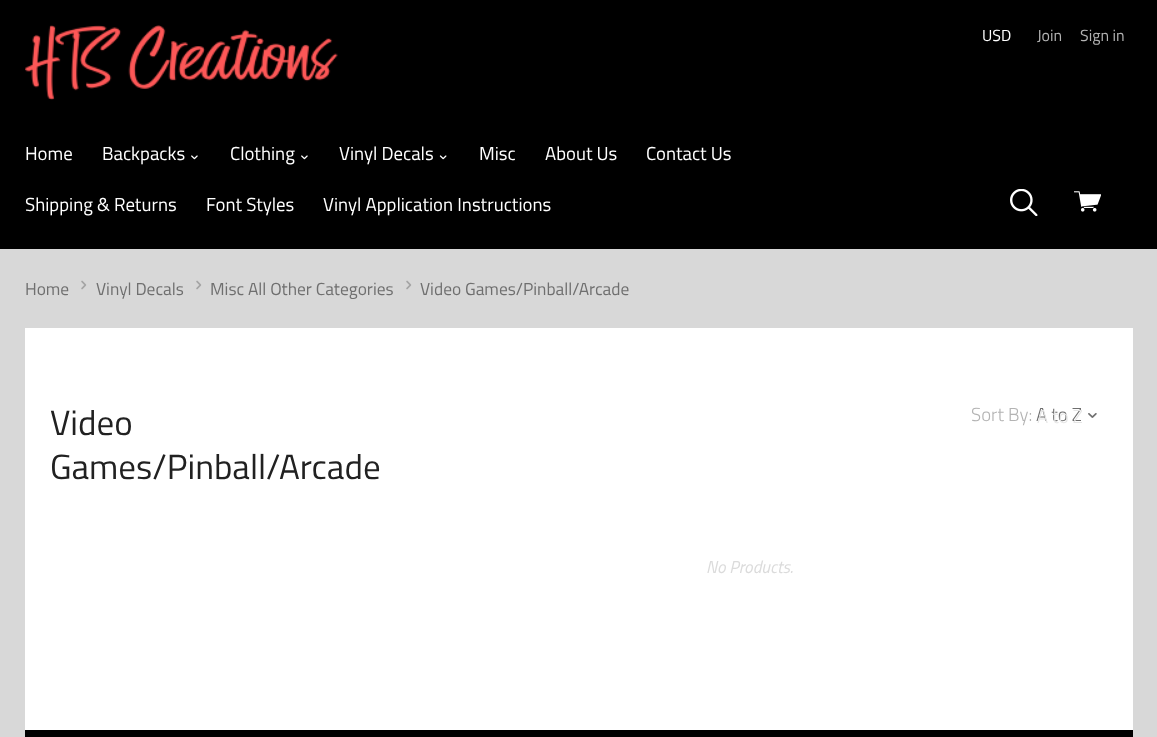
(async () => {
  const canvas = document.querySelector("canvas");
  canvas.width = 1157;
  canvas.height = 737;
  const ctx = canvas.getContext("2d");
  ctx.miterLimit = 4;
  ctx.fontKerning = "normal";
  async function loadImage(src) {
    const img = new Image();
    img.src = src;
    await img.decode();
    return img;
  }

  ctx.fillStyle = "#d8d8d8";
  ctx.fillRect(0, 0, 1157, 737);
  ctx.fillStyle = "#000000";
  ctx.fillRect(0, 0, 1157, 249);
  ctx.drawImage(await loadImage("img/1.png"), 25, 25, 313, 75);
  ctx.drawImage(await loadImage("img/2.png"), 1074, 191, 27, 21);
  ctx.drawImage(await loadImage("img/3.png"), 191, 155, 7, 5);
  ctx.drawImage(await loadImage("img/3.png"), 301, 155, 7, 5);
  ctx.drawImage(await loadImage("img/4.png"), 439, 155, 8, 5);
  ctx.drawImage(await loadImage("img/5.png"), 1010, 189, 28, 27);
  ctx.drawImage(await loadImage("img/6.png"), 81, 280, 6, 10);
  ctx.drawImage(await loadImage("img/6.png"), 196, 280, 6, 10);
  ctx.drawImage(await loadImage("img/6.png"), 406, 280, 6, 10);
  ctx.fillStyle = "#ffffff";
  ctx.fillRect(25, 328, 1108, 402);
  ctx.drawImage(await loadImage("img/7.png"), 1088, 413, 9, 5);
  ctx.fillStyle = "#000000";
  ctx.fillRect(25, 730, 1108, 7);
  ctx.font = "16px Titillium Web";
  ctx.fillStyle = "#ffffff";
  ctx.fillText("USD", 982, 41);
  ctx.fillStyle = "#b3b3b3";
  ctx.fillText("Join", 1037, 41);
  ctx.fillText("Sign in", 1080, 41);
  ctx.font = "18.75px Titillium Web";
  ctx.fillStyle = "#ffffff";
  for (const [text, x, y] of [
    ["Home", 25, 160],
    ["Backpacks", 102, 160],
    ["Clothing", 230, 160],
    ["Vinyl Decals", 339, 160],
    ["Misc", 479, 160],
    ["About Us", 545, 160],
    ["Contact Us", 646, 160],
    ["Shipping & Returns", 25, 211],
    ["Font Styles", 206, 211],
    ["Vinyl Application Instructions", 323, 211],
  ]) {
    ctx.fillText(text, x, y);
  }
  ctx.font = "17.4px Titillium Web";
  ctx.fillStyle = "#6f6f6f";
  for (const [text, x, y] of [
    ["Home", 25, 295],
    ["Vinyl Decals", 96, 295],
    ["Misc All Other Categories", 210, 295],
    ["Video Games/Pinball/Arcade", 420, 295],
  ]) {
    ctx.fillText(text, x, y);
  }
  ctx.font = "35px Titillium Web";
  ctx.fillStyle = "#212121";
  ctx.fillText("Video", 50, 435);
  ctx.fillText("Games/Pinball/Arcade", 50, 479);
  ctx.font = "300 18.75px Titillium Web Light";
  ctx.fillStyle = "#b3b3b3";
  ctx.fillText("Sort By:", 971, 421);
  ctx.fillStyle = "#6f6f6f";
  ctx.fillText("A to Z", 1036, 421);
  ctx.fillStyle = "#e5e5e5";
  ctx.fillText("A to Z", 1037, 423);
  ctx.font = "italic 17.4px Titillium Web";
  ctx.fillStyle = "#dbdbdb";
  ctx.fillText("No Products.", 706, 573);
})();
